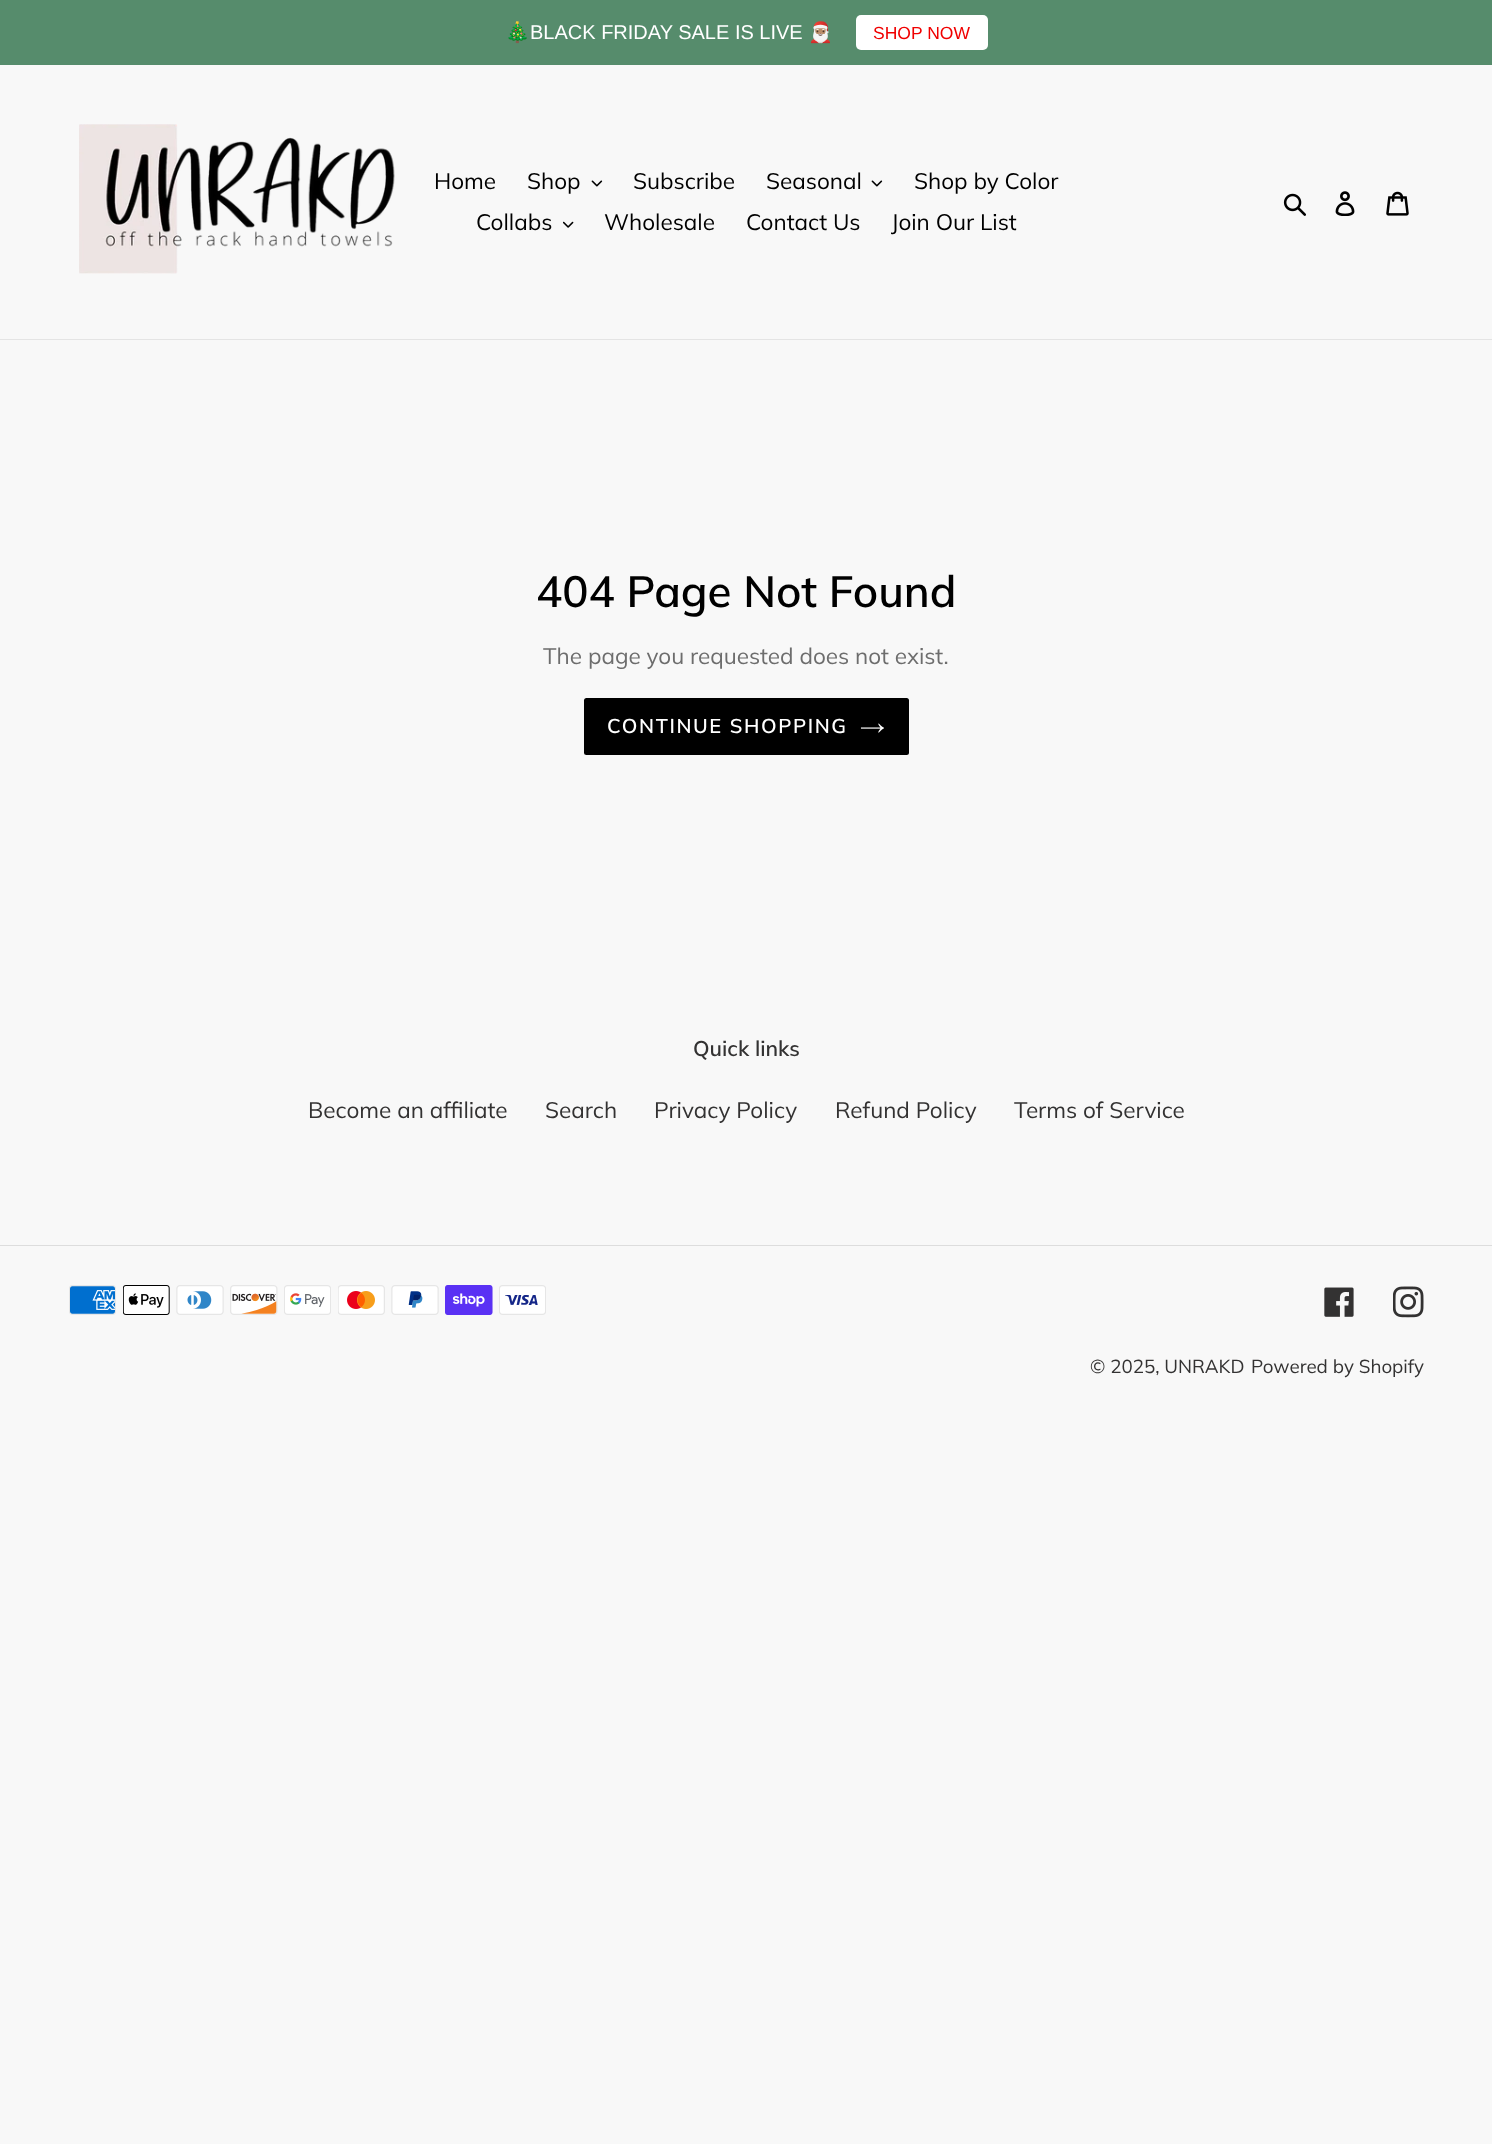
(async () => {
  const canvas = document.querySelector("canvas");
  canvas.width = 1492;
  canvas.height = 2144;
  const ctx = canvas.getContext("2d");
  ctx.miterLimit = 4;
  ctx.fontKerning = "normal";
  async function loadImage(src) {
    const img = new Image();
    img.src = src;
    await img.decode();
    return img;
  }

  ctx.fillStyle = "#f8f8f8";
  ctx.fillRect(0, 0, 1492, 2144);
  ctx.fillStyle = "#568c6c";
  ctx.fillRect(0, 0, 1492, 65);
  ctx.fillStyle = "#ffffff";
  ctx.beginPath();
  ctx.roundRect(856, 15, 132, 35, 5);
  ctx.fill();
  ctx.fillStyle = "#e4e4e4";
  ctx.fillRect(0, 339, 1492, 1);
  ctx.drawImage(await loadImage("img/1.png"), 79, 124, 316, 150);
  ctx.drawImage(await loadImage("img/2.png"), 591, 180, 12, 7);
  ctx.drawImage(await loadImage("img/2.png"), 871, 180, 12, 7);
  ctx.drawImage(await loadImage("img/3.png"), 563, 221, 11, 7);
  ctx.drawImage(await loadImage("img/4.png"), 1283, 193, 23, 23);
  ctx.drawImage(await loadImage("img/5.png"), 1335, 191, 20, 25);
  ctx.drawImage(await loadImage("img/6.png"), 1386, 191, 23, 25);
  ctx.fillStyle = "#000000";
  ctx.beginPath();
  ctx.roundRect(584, 698, 325, 57, 2.5);
  ctx.fill();
  ctx.drawImage(await loadImage("img/7.png"), 860, 723, 24, 10);
  ctx.fillStyle = "#dddddd";
  ctx.fillRect(0, 1245, 1492, 1);
  ctx.drawImage(await loadImage("img/8.png"), 69, 1285, 47, 30);
  ctx.drawImage(await loadImage("img/9.png"), 123, 1285, 47, 30);
  ctx.drawImage(await loadImage("img/10.png"), 176, 1285, 48, 30);
  ctx.drawImage(await loadImage("img/11.png"), 230, 1285, 48, 30);
  ctx.drawImage(await loadImage("img/12.png"), 284, 1285, 47, 30);
  ctx.drawImage(await loadImage("img/13.png"), 338, 1285, 47, 30);
  ctx.drawImage(await loadImage("img/14.png"), 391, 1285, 48, 30);
  ctx.drawImage(await loadImage("img/15.png"), 445, 1285, 48, 30);
  ctx.drawImage(await loadImage("img/16.png"), 499, 1285, 47, 30);
  ctx.drawImage(await loadImage("img/17.png"), 1324, 1287, 30, 30);
  ctx.drawImage(await loadImage("img/18.png"), 1393, 1286, 31, 32);
  ctx.font = "20px Noto Color Emoji";
  ctx.fillStyle = "#ffffff";
  ctx.fillText("🎄", 505, 39);
  ctx.font = "20px Liberation Sans";
  ctx.fillText("BLACK FRIDAY SALE IS LIVE", 530, 39);
  ctx.font = "20px Noto Color Emoji";
  ctx.fillText("🎅🏽", 808, 39);
  ctx.font = "17.5px Liberation Sans";
  ctx.fillStyle = "#f00000";
  ctx.fillText("SHOP NOW", 873, 39);
  ctx.font = "22.5px Muli";
  ctx.fillStyle = "#000000";
  for (const [text, x, y] of [
    ["Home", 434, 189],
    ["Shop", 527, 189],
    ["Subscribe", 633, 189],
    ["Seasonal", 766, 189],
    ["Shop by Color", 914, 189],
    ["Collabs", 476, 230],
    ["Wholesale", 604, 230],
    ["Contact Us", 746, 230],
    ["Join Our List", 891, 230],
  ]) {
    ctx.fillText(text, x, y);
  }
  ctx.font = "600 43.75px Muli";
  ctx.fillText("404 Page Not Found", 536, 607);
  ctx.font = "22.5px Muli";
  ctx.fillStyle = "#6d6d6d";
  ctx.fillText("The page you requested does not exist.", 543, 664);
  ctx.letterSpacing = "1.6px";
  ctx.font = "600 20px Muli";
  ctx.fillStyle = "#ffffff";
  ctx.fillText("CONTINUE SHOPPING", 607, 733);
  ctx.letterSpacing = "0px";
  ctx.font = "600 21.25px Muli";
  ctx.fillStyle = "#333232";
  ctx.fillText("Quick links", 693, 1056);
  ctx.font = "22.5px Muli";
  for (const [text, x, y] of [
    ["Become an affiliate", 308, 1118],
    ["Search", 545, 1118],
    ["Privacy Policy", 654, 1118],
    ["Refund Policy", 835, 1118],
    ["Terms of Service", 1014, 1118],
  ]) {
    ctx.fillText(text, x, y);
  }
  ctx.font = "18.75px Muli";
  ctx.fillText("© 2025, UNRAKD", 1090, 1373);
  ctx.fillText("Powered by Shopify", 1251, 1373);
})();
